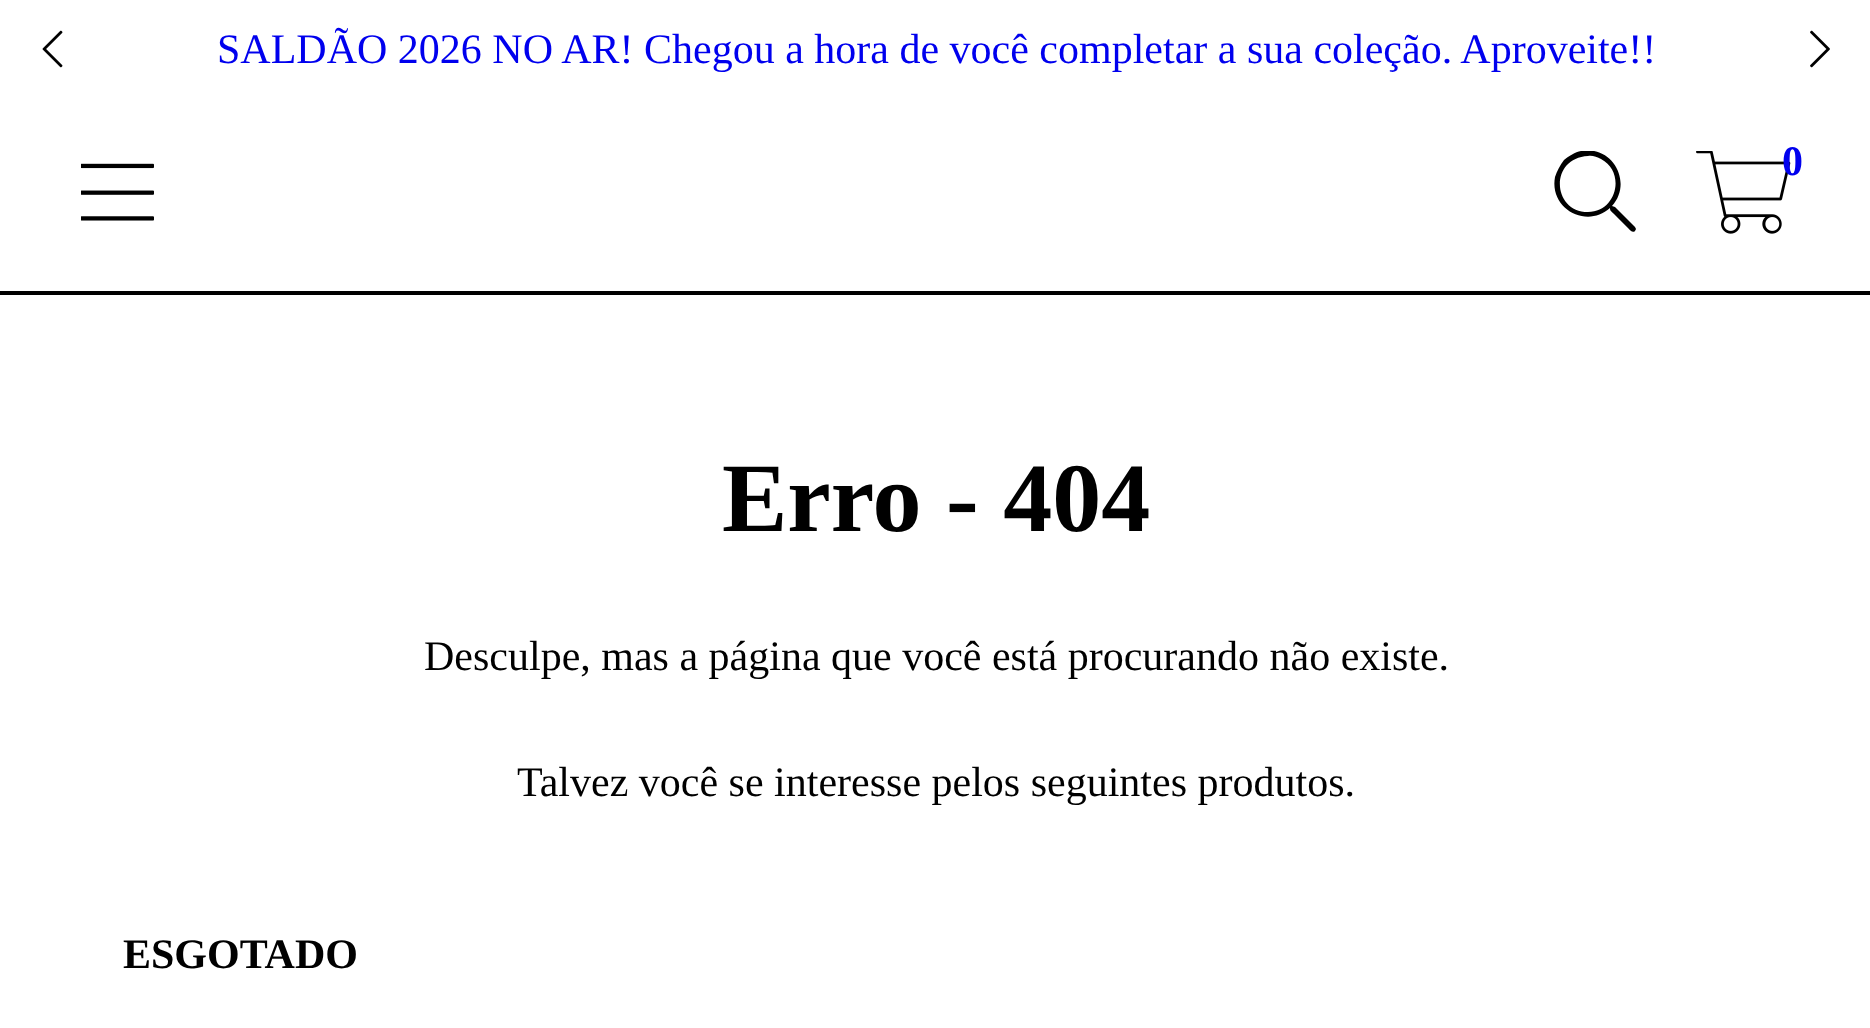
(async () => {
  const canvas = document.querySelector("canvas");
  canvas.width = 1870;
  canvas.height = 1028;
  const ctx = canvas.getContext("2d");
  ctx.miterLimit = 4;
  ctx.fontKerning = "normal";
  async function loadImage(src) {
    const img = new Image();
    img.src = src;
    await img.decode();
    return img;
  }
  let path;

  ctx.fillStyle = "#ffffff";
  ctx.fillRect(0, 0, 1870, 1028);
  ctx.drawImage(await loadImage("img/1.png"), 42, 30, 21, 38);
  ctx.drawImage(await loadImage("img/2.png"), 1810, 30, 20, 38);
  ctx.drawImage(await loadImage("img/3.png"), 81, 163, 73, 58);
  ctx.save();
  ctx.beginPath();
  ctx.rect(1554, 151, 84, 84);
  ctx.clip();
  ctx.fillStyle = "#000000";
  path = new Path2D("M1635 227L1615 207L1612 206C1633 183 1613 145 1581 151C1575 152 1569 156 1564 160C1560 165 1557 171 1555 177C1549 209 1587 229 1610 208C1610 211 1611 211 1614 214L1628 228C1630 230 1634 235 1636 229ZM1588 212C1552 212 1549 158 1588 156C1592 155 1597 157 1601 159C1626 172 1617 212 1588 212Z");
  ctx.fill(path);
  ctx.restore();
  ctx.drawImage(await loadImage("img/4.png"), 1696, 151, 95, 83);
  ctx.fillStyle = "#000000";
  ctx.fillRect(0, 291, 1870, 4);
  ctx.font = "42px Liberation Serif";
  ctx.fillStyle = "#0000ee";
  ctx.fillText("SALDÃO 2026 NO AR! Chegou a hora de você completar a sua coleção. Aproveite!!", 217, 63);
  ctx.font = "bold 42px Liberation Serif";
  ctx.fillText("0", 1782, 175);
  ctx.font = "bold 98px Liberation Serif";
  ctx.fillStyle = "#000000";
  ctx.fillText("Erro - 404", 722, 531);
  ctx.font = "42px Liberation Serif";
  ctx.fillText("Desculpe, mas a página que você está procurando não existe.", 424, 670);
  ctx.fillText("Talvez você se interesse pelos seguintes produtos.", 517, 796);
  ctx.font = "bold 42px Liberation Serif";
  ctx.fillText("ESGOTADO", 123, 968);
})();
